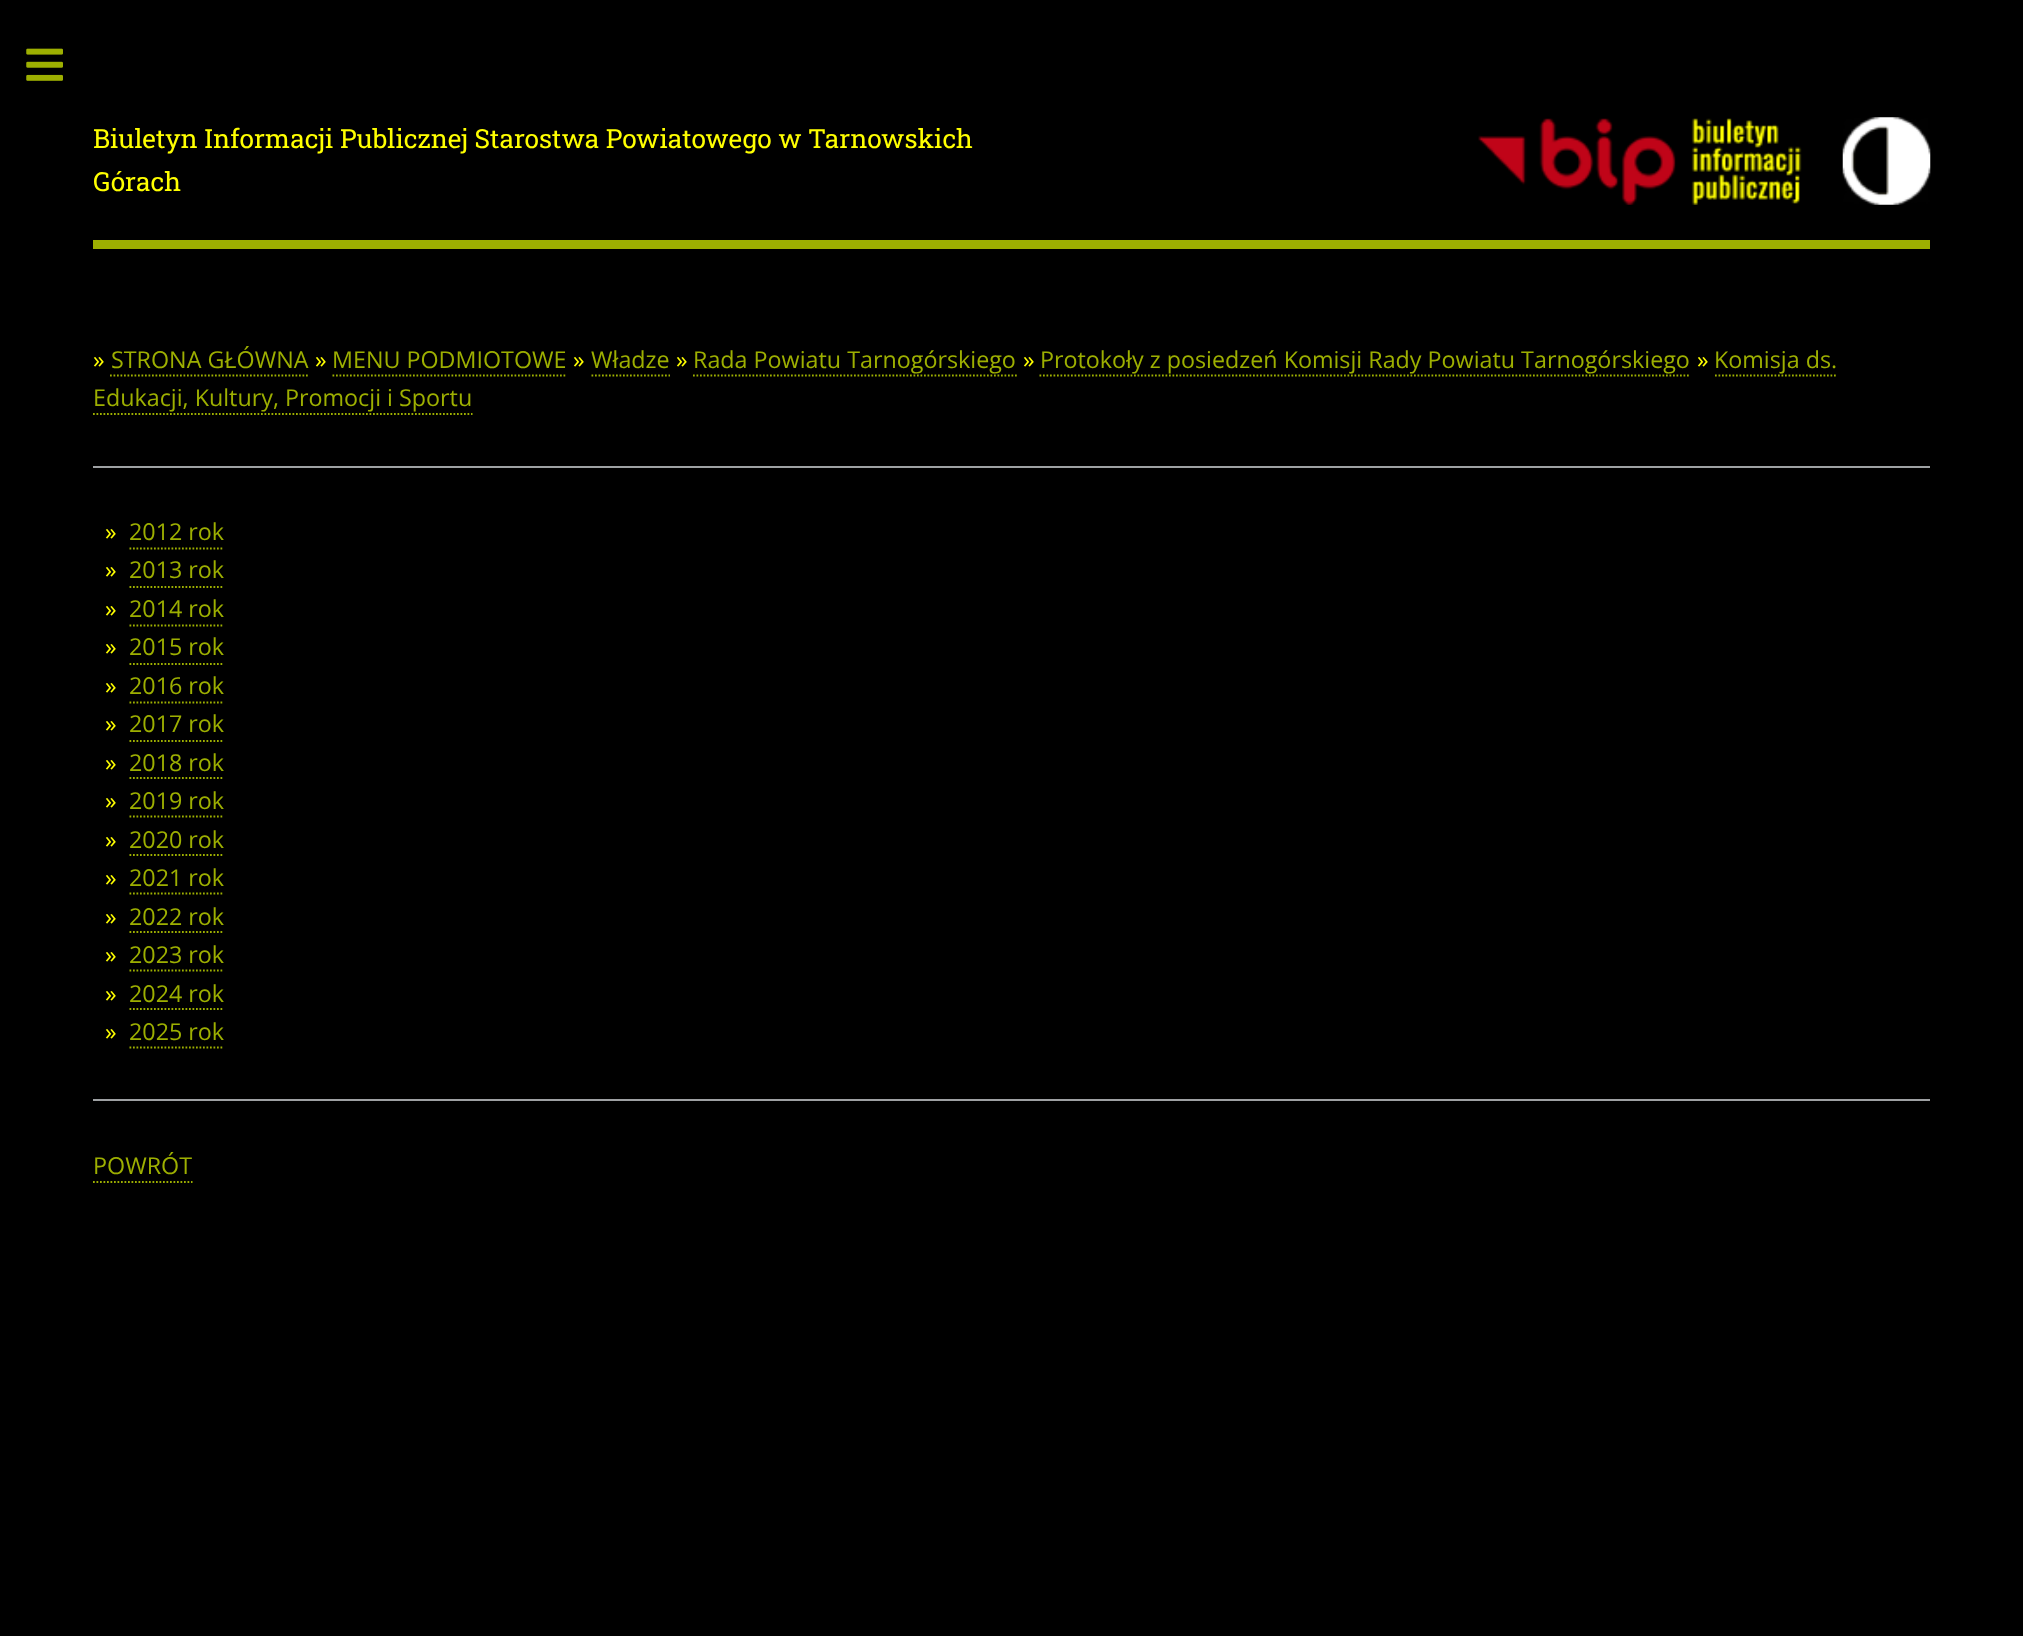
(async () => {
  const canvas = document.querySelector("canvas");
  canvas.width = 2023;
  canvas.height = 1636;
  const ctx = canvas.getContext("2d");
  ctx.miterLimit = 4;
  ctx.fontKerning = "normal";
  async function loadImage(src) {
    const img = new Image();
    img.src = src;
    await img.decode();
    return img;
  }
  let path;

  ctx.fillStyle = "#000000";
  ctx.fillRect(0, 0, 2023, 1636);
  ctx.drawImage(await loadImage("img/1.png"), 26, 48, 37, 33);
  ctx.fillStyle = "#9daf01";
  ctx.fillRect(93, 240, 1837, 9);
  ctx.drawImage(await loadImage("img/2.png"), 1478, 118, 324, 87);
  ctx.drawImage(await loadImage("img/3.png"), 1842, 117, 89, 88);
  path = new Path2D("M110 375.5H308");
  ctx.strokeStyle = "#9daf01";
  ctx.lineWidth = 1.8;
  ctx.setLineDash([1.75, 1.75]);
  ctx.stroke(path);
  path = new Path2D("M332.5 375.5H567");
  ctx.stroke(path);
  path = new Path2D("M591.5 375.5H670");
  ctx.stroke(path);
  path = new Path2D("M693 375.5H1017");
  ctx.stroke(path);
  path = new Path2D("M1039.5 375.5H1690.5");
  ctx.stroke(path);
  path = new Path2D("M1715 375.5H1837.5");
  ctx.stroke(path);
  path = new Path2D("M93 414H472.5");
  ctx.stroke(path);
  ctx.fillStyle = "#9ea1a3";
  ctx.fillRect(93, 466, 1837, 2);
  path = new Path2D("M129.5 548.5H224");
  ctx.stroke(path);
  path = new Path2D("M129.5 587H224");
  ctx.stroke(path);
  path = new Path2D("M129.5 625.5H224");
  ctx.stroke(path);
  path = new Path2D("M129.5 664H224");
  ctx.stroke(path);
  path = new Path2D("M129.5 702.5H224");
  ctx.stroke(path);
  path = new Path2D("M129.5 741H224");
  ctx.stroke(path);
  path = new Path2D("M129.5 778H224");
  ctx.stroke(path);
  path = new Path2D("M129.5 816.5H224");
  ctx.stroke(path);
  path = new Path2D("M129.5 855H224");
  ctx.stroke(path);
  path = new Path2D("M129.5 893.5H224");
  ctx.stroke(path);
  path = new Path2D("M129.5 932H224");
  ctx.stroke(path);
  path = new Path2D("M129.5 970.5H224");
  ctx.stroke(path);
  path = new Path2D("M129.5 1009H224");
  ctx.stroke(path);
  path = new Path2D("M129.5 1047.5H224");
  ctx.stroke(path);
  ctx.fillRect(93, 1099, 1837, 2);
  path = new Path2D("M93 1182H192.5");
  ctx.stroke(path);
  ctx.font = "26.25px Roboto Slab";
  ctx.fillStyle = "#ffff00";
  ctx.fillText("Biuletyn Informacji Publicznej Starostwa Powiatowego w Tarnowskich", 93, 148);
  ctx.fillText("Górach", 93, 191);
  ctx.font = "23.3px Open Sans";
  ctx.fillText("»", 93, 368);
  ctx.fillStyle = "#9daf01";
  ctx.fillText("STRONA GŁÓWNA", 111, 368);
  ctx.fillStyle = "#ffff00";
  ctx.fillText("»", 315, 368);
  ctx.fillStyle = "#9daf01";
  ctx.fillText("MENU PODMIOTOWE", 332, 368);
  ctx.fillStyle = "#ffff00";
  ctx.fillText("»", 573, 368);
  ctx.fillStyle = "#9daf01";
  ctx.fillText("Władze", 591, 368);
  ctx.fillStyle = "#ffff00";
  ctx.fillText("»", 676, 368);
  ctx.fillStyle = "#9daf01";
  ctx.fillText("Rada Powiatu Tarnogórskiego", 693, 368);
  ctx.fillStyle = "#ffff00";
  ctx.fillText("»", 1023, 368);
  ctx.fillStyle = "#9daf01";
  ctx.fillText("Protokoły z posiedzeń Komisji Rady Powiatu Tarnogórskiego", 1040, 368);
  ctx.fillStyle = "#ffff00";
  ctx.fillText("»", 1697, 368);
  ctx.fillStyle = "#9daf01";
  ctx.fillText("Komisja ds.", 1714, 368);
  ctx.fillText("Edukacji, Kultury, Promocji i Sportu", 93, 406);
  ctx.fillStyle = "#ffff00";
  ctx.fillText("»", 105, 540);
  ctx.fillStyle = "#9daf01";
  ctx.fillText("2012 rok", 129, 540);
  ctx.fillStyle = "#ffff00";
  ctx.fillText("»", 105, 578);
  ctx.fillStyle = "#9daf01";
  ctx.fillText("2013 rok", 129, 578);
  ctx.fillStyle = "#ffff00";
  ctx.fillText("»", 105, 617);
  ctx.fillStyle = "#9daf01";
  ctx.fillText("2014 rok", 129, 617);
  ctx.fillStyle = "#ffff00";
  ctx.fillText("»", 105, 655);
  ctx.fillStyle = "#9daf01";
  ctx.fillText("2015 rok", 129, 655);
  ctx.fillStyle = "#ffff00";
  ctx.fillText("»", 105, 694);
  ctx.fillStyle = "#9daf01";
  ctx.fillText("2016 rok", 129, 694);
  ctx.fillStyle = "#ffff00";
  ctx.fillText("»", 105, 732);
  ctx.fillStyle = "#9daf01";
  ctx.fillText("2017 rok", 129, 732);
  ctx.fillStyle = "#ffff00";
  ctx.fillText("»", 105, 771);
  ctx.fillStyle = "#9daf01";
  ctx.fillText("2018 rok", 129, 771);
  ctx.fillStyle = "#ffff00";
  ctx.fillText("»", 105, 809);
  ctx.fillStyle = "#9daf01";
  ctx.fillText("2019 rok", 129, 809);
  ctx.fillStyle = "#ffff00";
  ctx.fillText("»", 105, 848);
  ctx.fillStyle = "#9daf01";
  ctx.fillText("2020 rok", 129, 848);
  ctx.fillStyle = "#ffff00";
  ctx.fillText("»", 105, 886);
  ctx.fillStyle = "#9daf01";
  ctx.fillText("2021 rok", 129, 886);
  ctx.fillStyle = "#ffff00";
  ctx.fillText("»", 105, 925);
  ctx.fillStyle = "#9daf01";
  ctx.fillText("2022 rok", 129, 925);
  ctx.fillStyle = "#ffff00";
  ctx.fillText("»", 105, 963);
  ctx.fillStyle = "#9daf01";
  ctx.fillText("2023 rok", 129, 963);
  ctx.fillStyle = "#ffff00";
  ctx.fillText("»", 105, 1002);
  ctx.fillStyle = "#9daf01";
  ctx.fillText("2024 rok", 129, 1002);
  ctx.fillStyle = "#ffff00";
  ctx.fillText("»", 105, 1040);
  ctx.fillStyle = "#9daf01";
  ctx.fillText("2025 rok", 129, 1040);
  ctx.fillText("POWRÓT", 93, 1174);
})();
